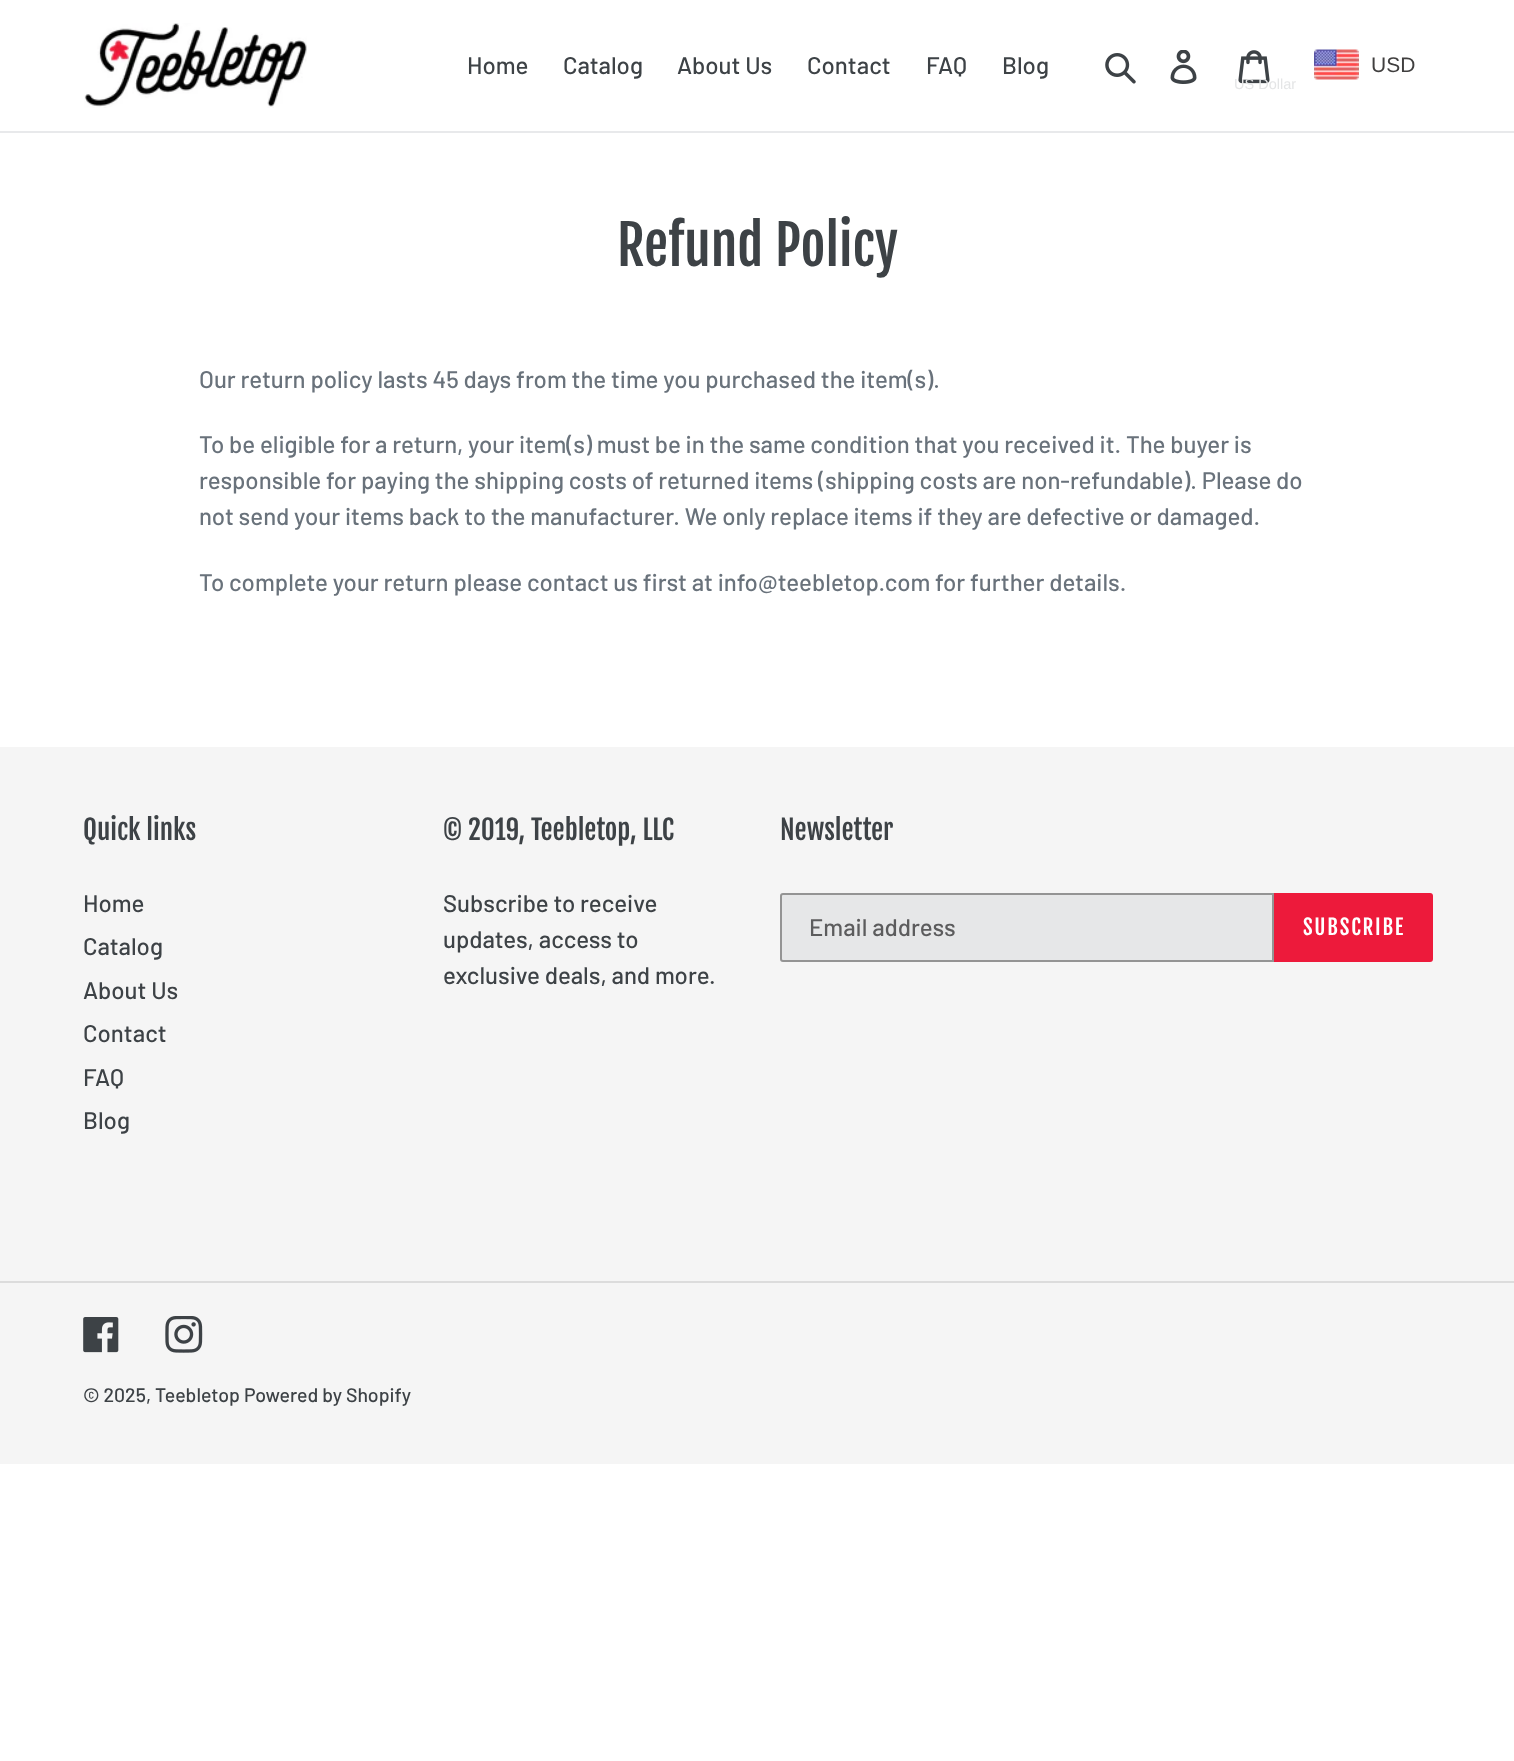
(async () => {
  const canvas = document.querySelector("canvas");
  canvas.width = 1514;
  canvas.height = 1761;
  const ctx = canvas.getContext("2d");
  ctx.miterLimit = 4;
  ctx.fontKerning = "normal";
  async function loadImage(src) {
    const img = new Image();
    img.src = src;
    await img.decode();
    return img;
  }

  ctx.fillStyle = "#ffffff";
  ctx.fillRect(0, 0, 1514, 1761);
  ctx.fillStyle = "#e8e9eb";
  ctx.fillRect(0, 131, 1514, 2);
  ctx.drawImage(await loadImage("img/1.png"), 84, 23, 223, 85);
  ctx.drawImage(await loadImage("img/2.png"), 1105, 53, 31, 31);
  ctx.drawImage(await loadImage("img/3.png"), 1170, 50, 27, 34);
  ctx.drawImage(await loadImage("img/4.png"), 1238, 50, 32, 34);
  ctx.drawImage(await loadImage("img/5.png"), 1314, 49, 45, 31);
  ctx.fillStyle = "#f5f5f5";
  ctx.fillRect(0, 747, 1514, 717);
  ctx.fillStyle = "#e6e7e8";
  ctx.beginPath();
  ctx.roundRect(781, 894, 492, 67, [2, 0, 0, 2]);
  ctx.fill();
  ctx.strokeStyle = "#949494";
  ctx.lineWidth = 2;
  ctx.stroke();
  ctx.fillStyle = "#ed1a3b";
  ctx.beginPath();
  ctx.roundRect(1274, 893, 159, 69, [0, 3, 3, 0]);
  ctx.fill();
  ctx.fillStyle = "#dcdcdc";
  ctx.fillRect(0, 1281, 1514, 2);
  ctx.drawImage(await loadImage("img/6.png"), 83, 1317, 36, 36);
  ctx.drawImage(await loadImage("img/7.png"), 165, 1316, 38, 37);
  ctx.font = "500 24px Barlow";
  ctx.fillStyle = "#3d4246";
  for (const [text, x, y] of [
    ["Home", 467, 74],
    ["Catalog", 563, 74],
    ["About Us", 677, 74],
    ["Contact", 807, 74],
    ["FAQ", 926, 74],
    ["Blog", 1002, 74],
  ]) {
    ctx.fillText(text, x, y);
  }
  ctx.font = "21px Liberation Sans";
  ctx.fillStyle = "#403f3f";
  ctx.fillText("USD", 1371, 72);
  ctx.font = "14.5px Liberation Sans";
  ctx.fillStyle = "#e4e5e6";
  ctx.fillText("US Dollar", 1234, 89);
  ctx.font = "54px Fjalla One";
  ctx.fillStyle = "#3d4246";
  ctx.fillText("Refund Policy", 617, 266);
  ctx.font = "500 24px Barlow";
  ctx.fillStyle = "#69727b";
  for (const [text, x, y] of [
    ["Our return policy lasts 45 days from the time you purchased the item(s).", 199, 388],
    ["To be eligible for a return, your item(s) must be in the same condition that you received it. The buyer is", 199, 453],
    ["responsible for paying the shipping costs of returned items (shipping costs are non-refundable). Please do", 199, 489],
    ["not send your items back to the manufacturer. We only replace items if they are defective or damaged.", 199, 525],
    ["To complete your return please contact us first at info@teebletop.com for further details.", 199, 591],
  ]) {
    ctx.fillText(text, x, y);
  }
  ctx.font = "27px Fjalla One";
  ctx.fillStyle = "#3d4246";
  ctx.fillText("Quick links", 83, 840);
  ctx.font = "500 24px Barlow";
  for (const [text, x, y] of [
    ["Home", 83, 912],
    ["Catalog", 83, 955],
    ["About Us", 83, 999],
    ["Contact", 83, 1042],
    ["FAQ", 83, 1086],
    ["Blog", 83, 1129],
  ]) {
    ctx.fillText(text, x, y);
  }
  ctx.font = "27px Fjalla One";
  ctx.fillText("© 2019, Teebletop, LLC", 443, 840);
  ctx.font = "500 24px Barlow";
  for (const [text, x, y] of [
    ["Subscribe to receive", 443, 912],
    ["updates, access to", 443, 948],
    ["exclusive deals, and more.", 443, 984],
  ]) {
    ctx.fillText(text, x, y);
  }
  ctx.font = "27px Fjalla One";
  ctx.fillText("Newsletter", 780, 840);
  ctx.font = "500 24px Barlow";
  ctx.fillStyle = "#5c5c5d";
  ctx.fillText("Email address", 809, 936);
  ctx.letterSpacing = "1.75px";
  ctx.font = "21px Fjalla One";
  ctx.fillStyle = "#ffffff";
  ctx.fillText("SUBSCRIBE", 1303, 935);
  ctx.letterSpacing = "0px";
  ctx.font = "500 19.5px Barlow";
  ctx.fillStyle = "#3d4246";
  ctx.fillText("© 2025, Teebletop", 83, 1402);
  ctx.fillText("Powered by Shopify", 244, 1402);
})();
